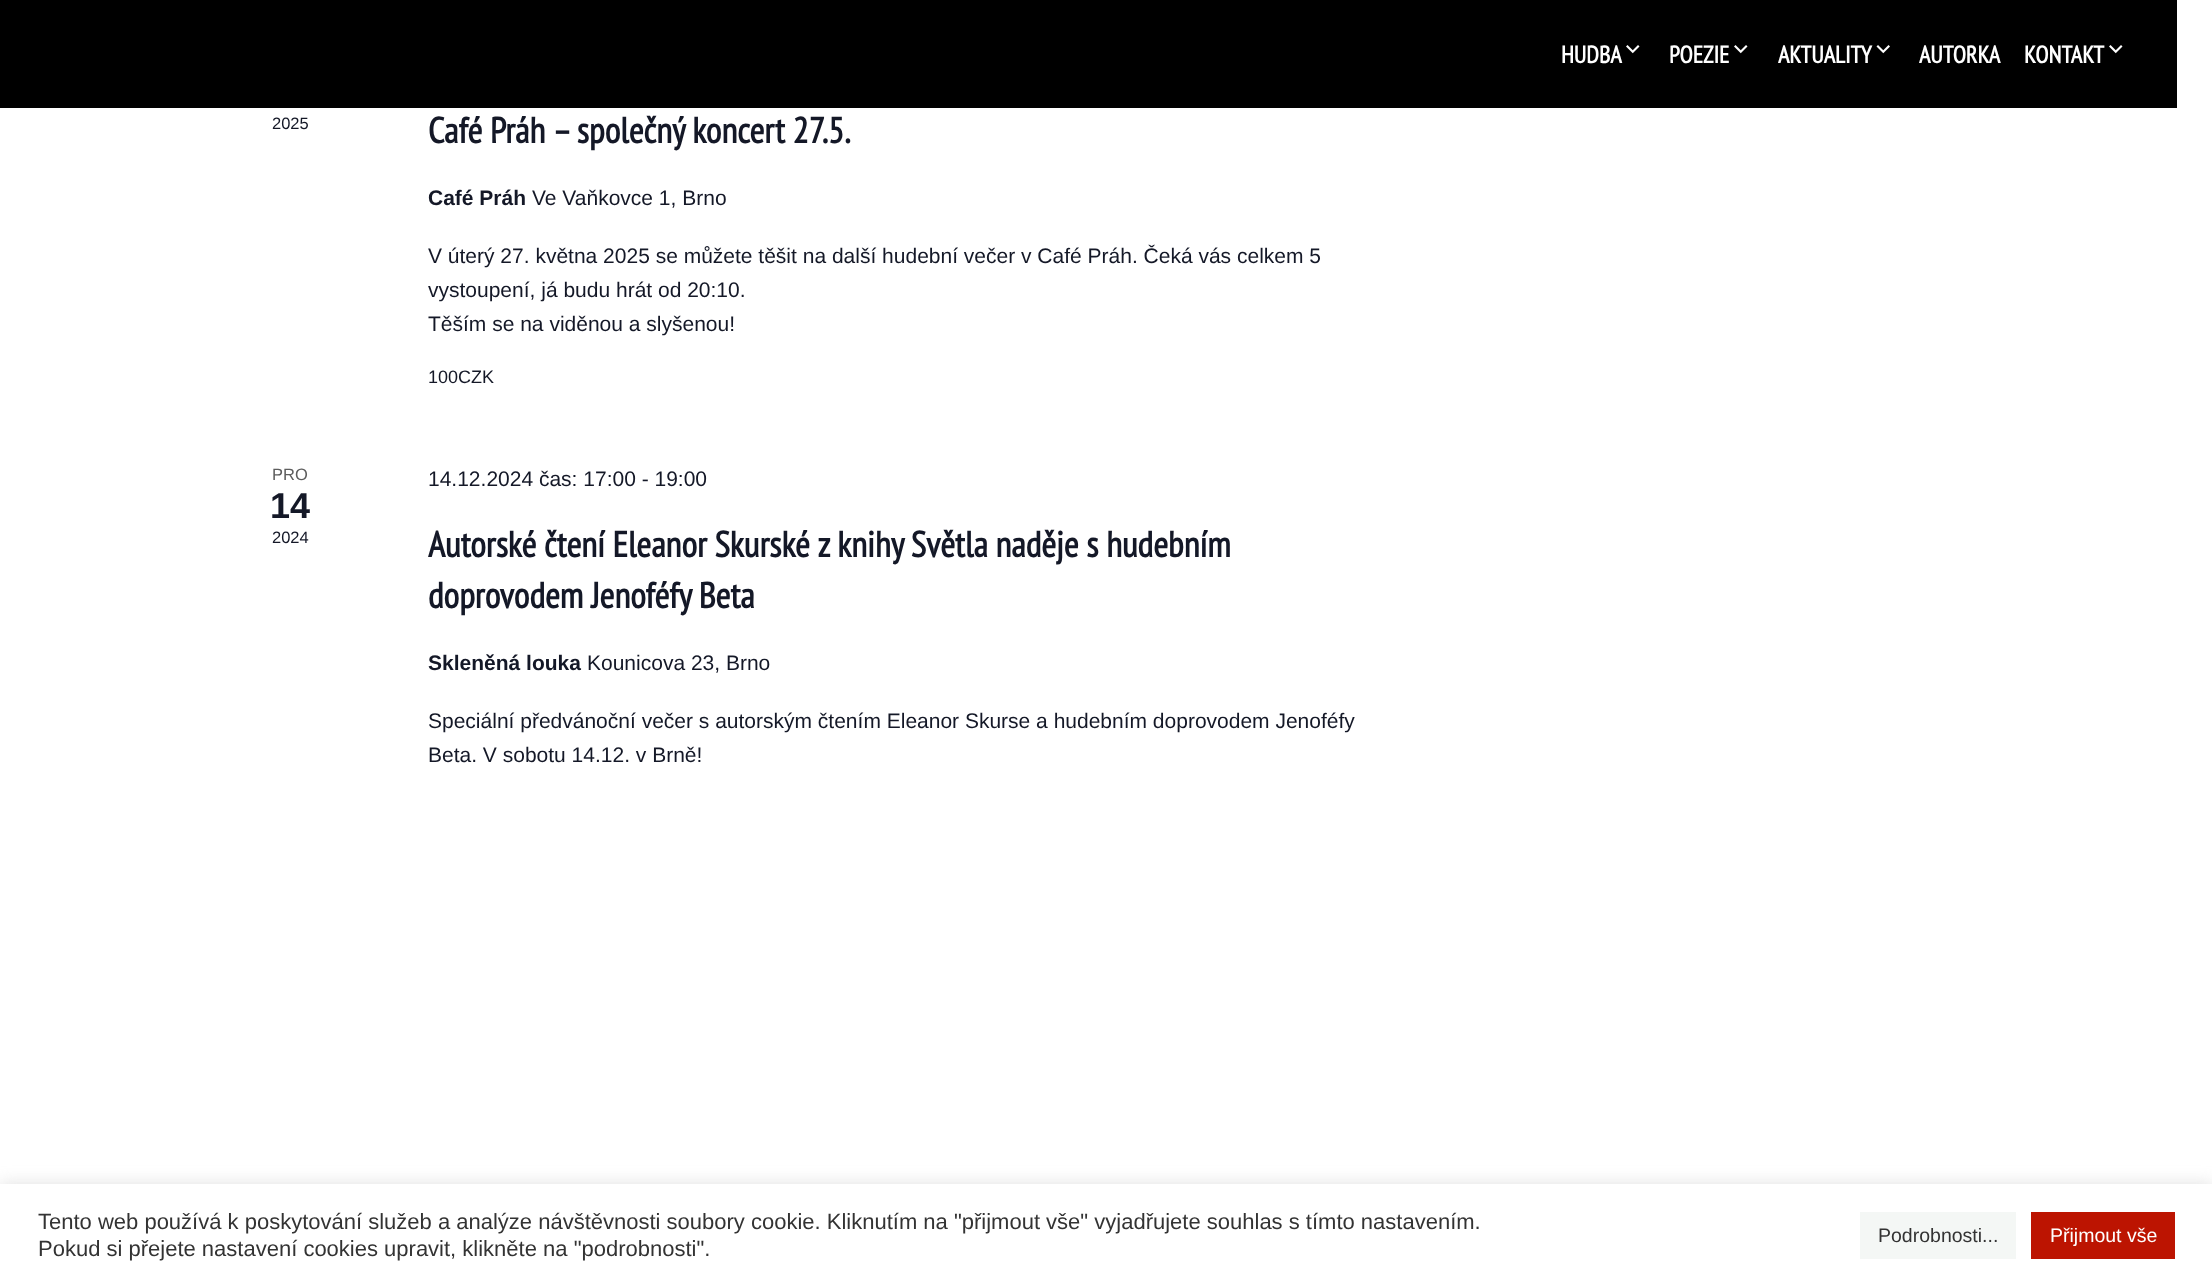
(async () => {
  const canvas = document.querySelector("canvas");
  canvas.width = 2212;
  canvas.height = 1287;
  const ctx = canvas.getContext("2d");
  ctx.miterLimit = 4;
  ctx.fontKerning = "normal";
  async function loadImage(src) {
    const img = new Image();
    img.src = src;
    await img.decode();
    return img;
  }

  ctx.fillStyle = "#ffffff";
  ctx.fillRect(0, 0, 2212, 1287);
  ctx.fillStyle = "#000000";
  ctx.fillRect(0, 0, 2177, 108);
  ctx.drawImage(await loadImage("img/1.png"), 1626, 45, 14, 9);
  ctx.drawImage(await loadImage("img/1.png"), 1734, 45, 14, 9);
  ctx.drawImage(await loadImage("img/2.png"), 1876, 45, 14, 9);
  ctx.drawImage(await loadImage("img/1.png"), 2109, 45, 14, 9);
  ctx.fillStyle = "rgba(172, 171, 171, 0.3)";
  ctx.filter = "blur(7.5px)";
  ctx.beginPath();
  ctx.rect(0, 1182, 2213, 104);
  ctx.fill();
  ctx.filter = "none";
  for (const [x, y, w, h, color] of [
    [0, 1184, 2212, 103, "#ffffff"],
    [1860, 1212, 156, 47, "#f4f7f5"],
    [2031, 1212, 144, 47, "#bc1401"],
  ]) {
    ctx.fillStyle = color;
    ctx.fillRect(x, y, w, h);
  }
  ctx.font = "bold 24px PT Sans Narrow";
  ctx.fillStyle = "#ffffff";
  for (const [text, x, y] of [
    ["HUDBA", 1561, 63],
    ["POEZIE", 1669, 63],
    ["AKTUALITY", 1778, 63],
    ["AUTORKA", 1919, 63],
    ["KONTAKT", 2024, 63],
  ]) {
    ctx.fillText(text, x, y);
  }
  ctx.font = "16.5px Liberation Sans";
  ctx.fillStyle = "#141827";
  ctx.fillText("2025", 272, 129);
  ctx.font = "bold 36px PT Sans Narrow";
  ctx.fillText("Café Práh – společný koncert 27.5.", 428, 143);
  ctx.font = "bold 21px Liberation Sans";
  ctx.fillText("Café Práh", 428, 205);
  ctx.font = "21px Liberation Sans";
  for (const [text, x, y] of [
    ["Ve Vaňkovce 1, Brno", 532, 205],
    ["V úterý 27. května 2025 se můžete těšit na další hudební večer v Café Práh. Čeká vás celkem 5", 428, 263],
    ["vystoupení, já budu hrát od 20:10.", 428, 297],
    ["Těším se na viděnou a slyšenou!", 428, 331],
  ]) {
    ctx.fillText(text, x, y);
  }
  ctx.font = "18px Liberation Sans";
  ctx.fillText("100CZK", 428, 383);
  ctx.font = "16.5px Liberation Sans";
  ctx.fillStyle = "#5d5d5d";
  ctx.fillText("PRO", 272, 480);
  ctx.font = "bold 36px Liberation Sans";
  ctx.fillStyle = "#141827";
  ctx.fillText("14", 270, 518);
  ctx.font = "16.5px Liberation Sans";
  ctx.fillText("2024", 272, 543);
  ctx.font = "21px Liberation Sans";
  ctx.fillText("14.12.2024 čas: 17:00 - 19:00", 428, 486);
  ctx.font = "bold 36px PT Sans Narrow";
  ctx.fillText("Autorské čtení Eleanor Skurské z knihy Světla naděje s hudebním", 428, 557);
  ctx.fillText("doprovodem Jenoféfy Beta", 428, 608);
  ctx.font = "bold 21px Liberation Sans";
  ctx.fillText("Skleněná louka", 428, 670);
  ctx.font = "21px Liberation Sans";
  for (const [text, x, y] of [
    ["Kounicova 23, Brno", 587, 670],
    ["Speciální předvánoční večer s autorským čtením Eleanor Skurse a hudebním doprovodem Jenoféfy", 428, 728],
    ["Beta. V sobotu 14.12. v Brně!", 428, 762],
  ]) {
    ctx.fillText(text, x, y);
  }
  ctx.font = "22px Liberation Sans";
  ctx.fillStyle = "#333333";
  ctx.fillText("Tento web používá k poskytování služeb a analýze návštěvnosti soubory cookie. Kliknutím na \"přijmout vše\" vyjadřujete souhlas s tímto nastavením.", 38, 1229);
  ctx.fillText("Pokud si přejete nastavení cookies upravit, klikněte na \"podrobnosti\".", 38, 1256);
  ctx.font = "19.5px Liberation Sans";
  ctx.fillText("Podrobnosti...", 1878, 1242);
  ctx.fillStyle = "#ffffff";
  ctx.fillText("Přijmout vše", 2050, 1242);
})();
